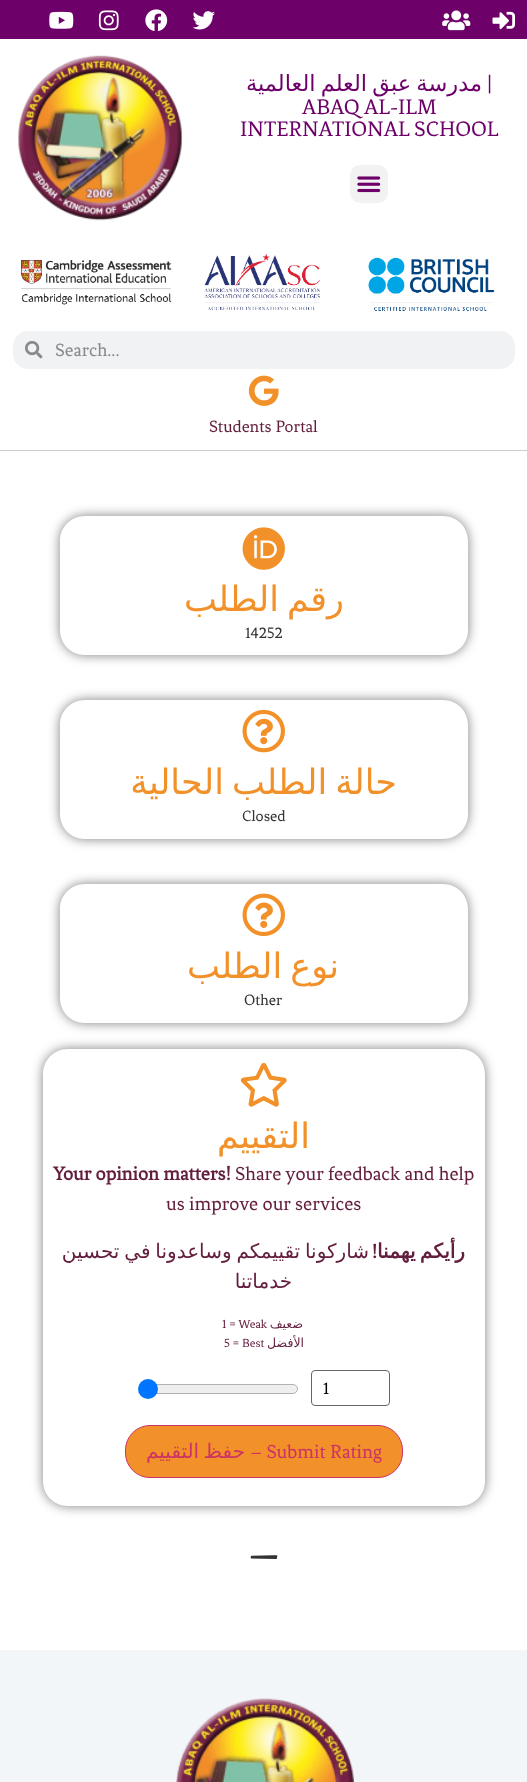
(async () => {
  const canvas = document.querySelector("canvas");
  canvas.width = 527;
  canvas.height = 1782;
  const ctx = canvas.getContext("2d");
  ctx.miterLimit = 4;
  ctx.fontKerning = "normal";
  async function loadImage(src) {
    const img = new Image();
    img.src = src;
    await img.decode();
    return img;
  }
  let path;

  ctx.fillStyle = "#ffffff";
  ctx.fillRect(0, 0, 527, 1782);
  ctx.fillStyle = "#6d0069";
  ctx.fillRect(0, 0, 527, 39);
  ctx.drawImage(await loadImage("img/1.png"), 49, 11, 25, 18);
  ctx.drawImage(await loadImage("img/2.png"), 98, 10, 21, 21);
  ctx.drawImage(await loadImage("img/3.png"), 145, 9, 23, 22);
  ctx.drawImage(await loadImage("img/4.png"), 192, 11, 23, 19);
  ctx.drawImage(await loadImage("img/5.png"), 442, 10, 29, 21);
  ctx.drawImage(await loadImage("img/6.png"), 492, 11, 23, 19);
  ctx.fillStyle = "#cecece";
  ctx.fillRect(0, 450, 527, 1);
  ctx.drawImage(await loadImage("img/7.png"), 18, 55, 165, 166);
  ctx.fillStyle = "#f2f2f2";
  ctx.beginPath();
  ctx.roundRect(350, 165, 38, 38, 10);
  ctx.fill();
  ctx.drawImage(await loadImage("img/8.png"), 357, 176, 24, 17);
  ctx.drawImage(await loadImage("img/9.png"), 21, 260, 151, 45);
  ctx.drawImage(await loadImage("img/10.png"), 204, 254, 116, 56);
  ctx.drawImage(await loadImage("img/11.png"), 368, 257, 127, 54);
  ctx.fillStyle = "#f1f2f3";
  ctx.beginPath();
  ctx.roundRect(13, 331, 502, 38, 15);
  ctx.fill();
  ctx.drawImage(await loadImage("img/12.png"), 25, 341, 18, 18);
  ctx.drawImage(await loadImage("img/13.png"), 248, 375, 31, 31);
  ctx.save();
  path = new Path2D("M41 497H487V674H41ZM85 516H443C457 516 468 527 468 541V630C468 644 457 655 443 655H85C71 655 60 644 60 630V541C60 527 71 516 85 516Z");
  ctx.clip(path, "evenodd");
  ctx.fillStyle = "rgba(0, 0, 0, 0.5)";
  ctx.filter = "blur(6px)";
  ctx.beginPath();
  ctx.roundRect(60, 516, 408, 139, 25);
  ctx.fill();
  ctx.filter = "none";
  ctx.restore();
  ctx.drawImage(await loadImage("img/14.png"), 242, 527, 43, 43);
  ctx.save();
  path = new Path2D("M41 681H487V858H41ZM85 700H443C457 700 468 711 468 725V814C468 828 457 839 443 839H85C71 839 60 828 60 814V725C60 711 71 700 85 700Z");
  ctx.clip(path, "evenodd");
  ctx.fillStyle = "rgba(0, 0, 0, 0.5)";
  ctx.filter = "blur(6px)";
  ctx.beginPath();
  ctx.roundRect(60, 700, 408, 139, 25);
  ctx.fill();
  ctx.filter = "none";
  ctx.restore();
  ctx.drawImage(await loadImage("img/15.png"), 242, 709, 43, 44);
  ctx.save();
  path = new Path2D("M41 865H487V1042H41ZM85 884H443C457 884 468 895 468 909V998C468 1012 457 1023 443 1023H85C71 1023 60 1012 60 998V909C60 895 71 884 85 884Z");
  ctx.clip(path, "evenodd");
  ctx.fillStyle = "rgba(0, 0, 0, 0.5)";
  ctx.filter = "blur(6px)";
  ctx.beginPath();
  ctx.roundRect(60, 884, 408, 139, 25);
  ctx.fill();
  ctx.filter = "none";
  ctx.restore();
  ctx.drawImage(await loadImage("img/16.png"), 242, 893, 43, 43);
  ctx.save();
  path = new Path2D("M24 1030H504V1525H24ZM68 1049H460C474 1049 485 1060 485 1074V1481C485 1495 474 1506 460 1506H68C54 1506 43 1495 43 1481V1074C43 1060 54 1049 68 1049Z");
  ctx.clip(path, "evenodd");
  ctx.fillStyle = "rgba(0, 0, 0, 0.5)";
  ctx.filter = "blur(6px)";
  ctx.beginPath();
  ctx.roundRect(43, 1049, 442, 457, 25);
  ctx.fill();
  ctx.filter = "none";
  ctx.restore();
  ctx.drawImage(await loadImage("img/17.png"), 240, 1063, 47, 44);
  ctx.fillStyle = "#efefef";
  ctx.beginPath();
  ctx.roundRect(139.5, 1384.5, 158, 9, 4.5);
  ctx.fill();
  ctx.strokeStyle = "#b2b2b2";
  ctx.stroke();
  ctx.fillStyle = "#0075ff";
  ctx.beginPath();
  ctx.arc(148, 1389, 10, 0, Math.PI * 2);
  ctx.fill();
  ctx.beginPath();
  ctx.roundRect(311.5, 1370.5, 78, 35, 3.5);
  ctx.strokeStyle = "#666666";
  ctx.stroke();
  ctx.fillStyle = "#f29129";
  ctx.beginPath();
  ctx.roundRect(125.5, 1425.5, 277, 52, 24.5);
  ctx.fill();
  ctx.strokeStyle = "#cc3366";
  ctx.stroke();
  ctx.fillStyle = "#f2f6f9";
  ctx.fillRect(0, 1650, 527, 132);
  ctx.drawImage(await loadImage("img/18.png"), 176, 1698, 178, 84);
  ctx.wordSpacing = "-2px";
  ctx.direction = "rtl";
  ctx.font = "22.5px DejaVu Sans";
  ctx.fillStyle = "#6d0069";
  ctx.fillText("مدرسة عبق العلم العالمية", 482, 91);
  ctx.wordSpacing = "0px";
  ctx.direction = "ltr";
  ctx.font = "22.5px Fenix";
  for (const [text, x, y] of [
    ["|", 487, 91],
    ["ABAQ AL-ILM", 302, 114],
    ["INTERNATIONAL SCHOOL", 240, 136],
  ]) {
    ctx.fillText(text, x, y);
  }
  ctx.font = "19px Fenix";
  ctx.fillStyle = "#868a8e";
  ctx.fillText("Search...", 55, 356);
  ctx.font = "17.5px Fenix";
  ctx.fillStyle = "#631e3e";
  ctx.fillText("Students Portal", 209, 432);
  ctx.wordSpacing = "-3px";
  ctx.direction = "rtl";
  ctx.font = "35px DejaVu Sans";
  ctx.fillStyle = "#f29129";
  ctx.fillText("رقم الطلب", 344, 611);
  ctx.wordSpacing = "0px";
  ctx.direction = "ltr";
  ctx.font = "16px Fenix";
  ctx.fillStyle = "#333333";
  ctx.fillText("14252", 245, 638);
  ctx.wordSpacing = "-3px";
  ctx.direction = "rtl";
  ctx.font = "35px DejaVu Sans";
  ctx.fillStyle = "#f29129";
  ctx.fillText("حالة الطلب الحالية", 397, 794);
  ctx.wordSpacing = "0px";
  ctx.direction = "ltr";
  ctx.font = "16px Fenix";
  ctx.fillStyle = "#333333";
  ctx.fillText("Closed", 242, 821);
  ctx.wordSpacing = "-3px";
  ctx.direction = "rtl";
  ctx.font = "35px DejaVu Sans";
  ctx.fillStyle = "#f29129";
  ctx.fillText("نوع الطلب", 339, 978);
  ctx.wordSpacing = "0px";
  ctx.direction = "ltr";
  ctx.font = "16px Fenix";
  ctx.fillStyle = "#333333";
  ctx.fillText("Other", 244, 1005);
  ctx.direction = "rtl";
  ctx.font = "35px DejaVu Sans";
  ctx.fillStyle = "#f29129";
  ctx.fillText("التقييم", 310, 1148);
  ctx.direction = "ltr";
  ctx.font = "bold 20px Fenix";
  ctx.fillStyle = "#631e3e";
  ctx.fillText("Your opinion matters!", 53, 1180);
  ctx.font = "20px Fenix";
  ctx.fillText("Share your feedback and help", 235, 1180);
  ctx.fillText("us improve our services", 166, 1210);
  ctx.direction = "rtl";
  ctx.font = "bold 20px Fenix";
  ctx.fillText("!", 377, 1258);
  ctx.wordSpacing = "-1.5px";
  ctx.font = "20px DejaVu Sans";
  ctx.fillText("شاركونا تقييمكم وساعدونا في تحسين", 369, 1258);
  ctx.wordSpacing = "-2px";
  ctx.font = "bold 20px DejaVu Sans";
  ctx.fillText("رأيكم يهمنا", 465, 1258);
  ctx.wordSpacing = "0px";
  ctx.font = "20px DejaVu Sans";
  ctx.fillText("خدماتنا", 292, 1288);
  ctx.direction = "ltr";
  ctx.font = "12.5px Fenix";
  ctx.fillText("1 = Weak", 222, 1328);
  ctx.direction = "rtl";
  ctx.font = "12.5px DejaVu Sans";
  ctx.fillText("ضعيف", 303, 1328);
  ctx.direction = "ltr";
  ctx.font = "12.5px Fenix";
  ctx.fillText("5 = Best", 224, 1347);
  ctx.direction = "rtl";
  ctx.font = "12.5px DejaVu Sans";
  ctx.fillText("الأفضل", 304, 1347);
  ctx.direction = "ltr";
  ctx.font = "17.5px Fenix";
  ctx.fillStyle = "#000000";
  ctx.fillText("1", 323, 1394);
  ctx.wordSpacing = "-2px";
  ctx.direction = "rtl";
  ctx.font = "20px DejaVu Sans";
  ctx.fillStyle = "#cc3366";
  ctx.fillText("حفظ التقييم", 245, 1458);
  ctx.wordSpacing = "0px";
  ctx.direction = "ltr";
  ctx.font = "20px Fenix";
  ctx.fillText("– Submit Rating", 250, 1458);
  ctx.font = "56px Fenix";
  ctx.fillStyle = "#333333";
  ctx.fillText("–", 247, 1570);
})();
